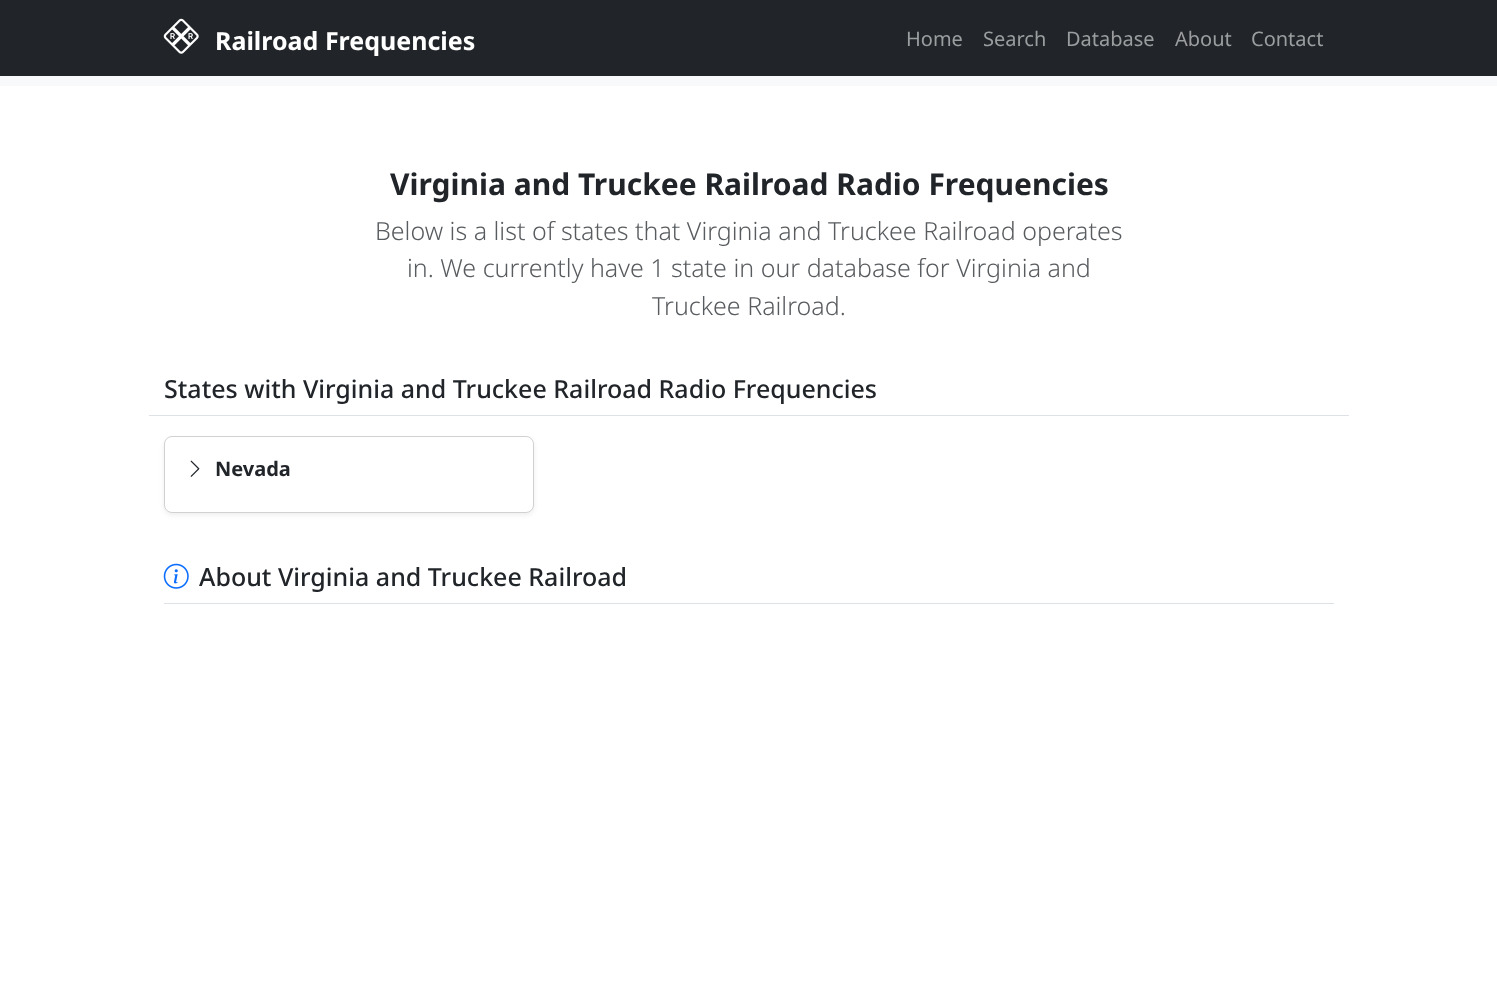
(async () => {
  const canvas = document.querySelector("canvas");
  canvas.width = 1497;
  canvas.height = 982;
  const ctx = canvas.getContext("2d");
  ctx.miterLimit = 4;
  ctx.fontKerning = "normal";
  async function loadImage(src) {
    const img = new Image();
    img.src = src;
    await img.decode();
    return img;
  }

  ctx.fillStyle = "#ffffff";
  ctx.fillRect(0, 0, 1497, 982);
  ctx.fillStyle = "#212529";
  ctx.fillRect(0, 0, 1497, 76);
  ctx.drawImage(await loadImage("img/1.png"), 163, 18, 36, 36);
  ctx.fillStyle = "#f8f9fa";
  ctx.fillRect(0, 76, 1497, 10);
  ctx.fillStyle = "#dee2e6";
  ctx.fillRect(149, 415, 1200, 1);
  ctx.fillStyle = "rgba(0, 0, 0, 0.07)";
  ctx.filter = "blur(2.5px)";
  ctx.beginPath();
  ctx.roundRect(164, 439, 370, 76, 8);
  ctx.fill();
  ctx.filter = "none";
  ctx.fillStyle = "#ffffff";
  ctx.beginPath();
  ctx.roundRect(164, 436, 370, 77, 8);
  ctx.fill();
  ctx.beginPath();
  ctx.roundRect(164.5, 436.5, 369, 76, 7.5);
  ctx.strokeStyle = "rgba(0, 0, 0, 0.18)";
  ctx.stroke();
  ctx.drawImage(await loadImage("img/2.png"), 190, 460, 10, 17);
  ctx.fillStyle = "#dee2e6";
  ctx.fillRect(164, 603, 1170, 1);
  ctx.drawImage(await loadImage("img/3.png"), 163, 563, 26, 26);
  ctx.font = "bold 25px Noto Sans";
  ctx.fillStyle = "#ffffff";
  ctx.fillText("Railroad Frequencies", 215, 50);
  ctx.font = "20px Noto Sans";
  ctx.fillStyle = "#9b9d9f";
  for (const [text, x, y] of [
    ["Home", 906, 46],
    ["Search", 983, 46],
    ["Database", 1066, 46],
    ["About", 1175, 46],
    ["Contact", 1251, 46],
  ]) {
    ctx.fillText(text, x, y);
  }
  ctx.font = "bold 30px Noto Sans";
  ctx.fillStyle = "#212529";
  ctx.fillText("Virginia and Truckee Railroad Radio Frequencies", 390, 195);
  ctx.font = "300 25px Noto Sans";
  ctx.fillStyle = "#595c5f";
  for (const [text, x, y] of [
    ["Below is a list of states that Virginia and Truckee Railroad operates", 375, 240],
    ["in. We currently have 1 state in our database for Virginia and", 407, 277],
    ["Truckee Railroad.", 652, 315],
  ]) {
    ctx.fillText(text, x, y);
  }
  ctx.font = "500 25px Noto Sans";
  ctx.fillStyle = "#212529";
  ctx.fillText("States with Virginia and Truckee Railroad Radio Frequencies", 164, 398);
  ctx.font = "bold 20px Noto Sans";
  ctx.fillText("Nevada", 215, 476);
  ctx.font = "500 25px Noto Sans";
  ctx.fillText("About Virginia and Truckee Railroad", 199, 586);
})();
